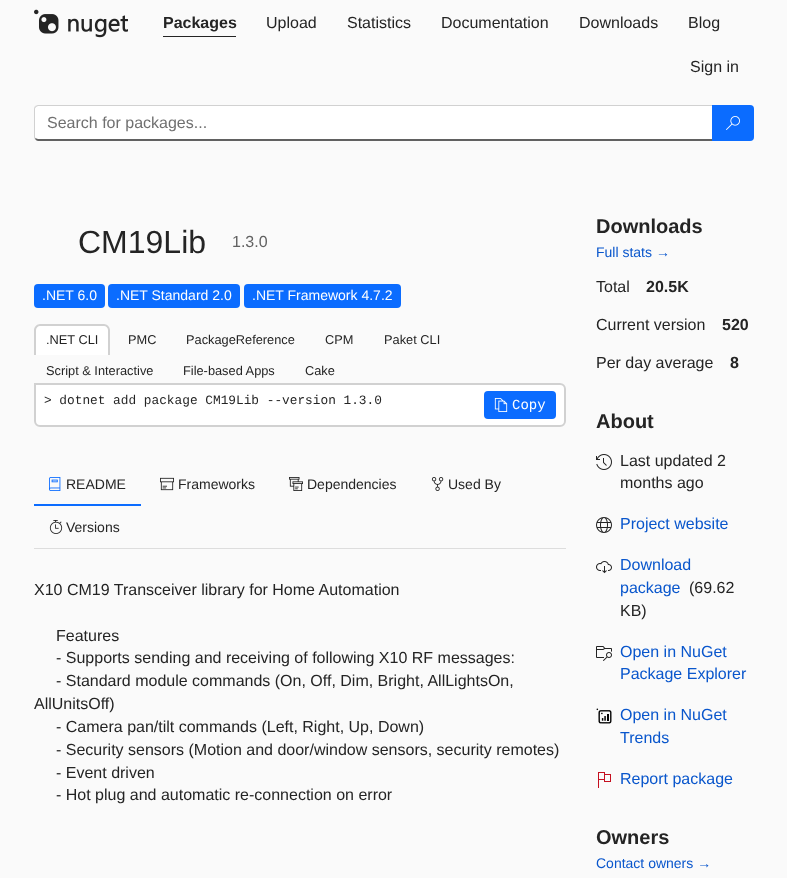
(async () => {
  const canvas = document.querySelector("canvas");
  canvas.width = 787;
  canvas.height = 878;
  const ctx = canvas.getContext("2d");
  ctx.miterLimit = 4;
  ctx.fontKerning = "normal";
  async function loadImage(src) {
    const img = new Image();
    img.src = src;
    await img.decode();
    return img;
  }
  let path;

  ctx.fillStyle = "#fafafa";
  ctx.fillRect(0, 0, 787, 878);
  ctx.drawImage(await loadImage("img/1.png"), 34, 9, 94, 29);
  ctx.fillStyle = "#242424";
  ctx.fillRect(163, 36, 73, 1);
  ctx.fillStyle = "#ffffff";
  path = new Path2D("M38 106H712V139H38C36 139 35 138 35 137V109C35 107 36 106 38 106Z");
  ctx.fill(path);
  ctx.fillStyle = "#d1d1d1";
  path = new Path2D("M38 105L35 106L36 107L38 106H712L713 105Z");
  ctx.fill(path);
  ctx.fillStyle = "#616161";
  path = new Path2D("M713 141L712 139H38L35 138V139C36 140 37 141 38 141Z");
  ctx.fill(path);
  ctx.fillStyle = "#d1d1d1";
  path = new Path2D("M34 109V137C34 138 34.5 138.5 35 139.5L35.5 138L35 137V108.5L36 107L35 106C34.5 107 34 108 34 109Z");
  ctx.fill(path);
  ctx.fillStyle = "#0b6cff";
  ctx.beginPath();
  ctx.roundRect(712, 105, 42, 36, [0, 4, 4, 0]);
  ctx.fill();
  ctx.drawImage(await loadImage("img/2.png"), 726, 116, 14, 14);
  ctx.beginPath();
  ctx.roundRect(34, 284, 71, 24, 4);
  ctx.fill();
  ctx.beginPath();
  ctx.roundRect(108, 284, 132, 24, 4);
  ctx.fill();
  ctx.beginPath();
  ctx.roundRect(244, 284, 157, 24, 4);
  ctx.fill();
  ctx.fillStyle = "#ffffff";
  ctx.beginPath();
  ctx.roundRect(34, 324, 76, 31, [6, 6, 0, 0]);
  ctx.fill();
  ctx.fillStyle = "#d1d1d1";
  path = new Path2D("M40 324H104C107 324 110 327 110 330V355H34V330C34 327 37 324 40 324ZM40 326H104C106 326 108 328 108 330V355H36V330C36 328 38 326 40 326Z");
  ctx.fill(path, "evenodd");
  ctx.fillStyle = "#ffffff";
  ctx.beginPath();
  ctx.roundRect(35, 384, 530, 42, [0, 5, 5, 5]);
  ctx.fill();
  ctx.strokeStyle = "#d1d1d1";
  ctx.lineWidth = 2;
  ctx.stroke();
  ctx.fillStyle = "#0b6cff";
  ctx.beginPath();
  ctx.roundRect(484, 391, 72, 28, 4);
  ctx.fill();
  ctx.drawImage(await loadImage("img/3.png"), 494, 398, 14, 14);
  ctx.fillStyle = "#dddddd";
  ctx.fillRect(34, 548, 532, 1);
  ctx.fillStyle = "#0b6cff";
  ctx.fillRect(34, 504, 107, 2);
  ctx.drawImage(await loadImage("img/4.png"), 49, 477, 12, 14);
  ctx.drawImage(await loadImage("img/5.png"), 160, 477, 14, 14);
  ctx.drawImage(await loadImage("img/6.png"), 289, 477, 14, 14);
  ctx.drawImage(await loadImage("img/7.png"), 431, 477, 13, 14);
  ctx.drawImage(await loadImage("img/8.png"), 49, 520, 14, 14);
  ctx.drawImage(await loadImage("img/9.png"), 596, 454, 16, 16);
  ctx.drawImage(await loadImage("img/10.png"), 596, 517, 16, 16);
  ctx.drawImage(await loadImage("img/11.png"), 596, 561, 16, 13);
  ctx.drawImage(await loadImage("img/12.png"), 596, 646, 16, 15);
  ctx.drawImage(await loadImage("img/13.png"), 596, 708, 16, 16);
  ctx.drawImage(await loadImage("img/14.png"), 598, 772, 13, 16);
  ctx.font = "bold 16px Liberation Sans";
  ctx.fillStyle = "#242424";
  ctx.fillText("Packages", 163, 28);
  ctx.font = "16px Liberation Sans";
  for (const [text, x, y] of [
    ["Upload", 266, 28],
    ["Statistics", 347, 28],
    ["Documentation", 441, 28],
    ["Downloads", 579, 28],
    ["Blog", 688, 28],
    ["Sign in", 690, 72],
  ]) {
    ctx.fillText(text, x, y);
  }
  ctx.fillStyle = "#707070";
  ctx.fillText("Search for packages...", 47, 128);
  ctx.font = "32px Liberation Sans";
  ctx.fillStyle = "#242424";
  ctx.fillText("CM19Lib", 78, 253);
  ctx.font = "16px Liberation Sans";
  ctx.fillStyle = "#616161";
  ctx.fillText("1.3.0", 232, 247);
  ctx.font = "14px Liberation Sans";
  ctx.fillStyle = "#ffffff";
  for (const [text, x, y] of [
    [".NET 6.0", 42, 300],
    [".NET Standard 2.0", 116, 300],
    [".NET Framework 4.7.2", 252, 300],
  ]) {
    ctx.fillText(text, x, y);
  }
  ctx.font = "12.8px Liberation Sans";
  ctx.fillStyle = "#242424";
  for (const [text, x, y] of [
    [".NET CLI", 46, 344],
    ["PMC", 128, 344],
    ["PackageReference", 186, 344],
    ["CPM", 325, 344],
    ["Paket CLI", 384, 344],
    ["Script & Interactive", 46, 375],
    ["File-based Apps", 183, 375],
    ["Cake", 305, 375],
  ]) {
    ctx.fillText(text, x, y);
  }
  ctx.font = "12.8px Liberation Mono";
  ctx.fillText("> dotnet add package CM19Lib --version 1.3.0", 44, 404);
  ctx.font = "14px Liberation Mono";
  ctx.fillStyle = "#ffffff";
  ctx.fillText("Copy", 512, 409);
  ctx.font = "14px Liberation Sans";
  ctx.fillStyle = "#242424";
  for (const [text, x, y] of [
    ["README", 66, 489],
    ["Frameworks", 178, 489],
    ["Dependencies", 307, 489],
    ["Used By", 448, 489],
    ["Versions", 66, 532],
  ]) {
    ctx.fillText(text, x, y);
  }
  ctx.font = "16px Liberation Sans";
  for (const [text, x, y] of [
    ["X10 CM19 Transceiver library for Home Automation", 34, 595],
    ["Features", 56, 641],
    ["- Supports sending and receiving of following X10 RF messages:", 56, 663],
    ["- Standard module commands (On, Off, Dim, Bright, AllLightsOn,", 56, 686],
    ["AllUnitsOff)", 34, 709],
    ["- Camera pan/tilt commands (Left, Right, Up, Down)", 56, 732],
    ["- Security sensors (Motion and door/window sensors, security remotes)", 56, 755],
    ["- Event driven", 56, 778],
    ["- Hot plug and automatic re-connection on error", 56, 800],
  ]) {
    ctx.fillText(text, x, y);
  }
  ctx.font = "bold 20px Liberation Sans";
  ctx.fillText("Downloads", 596, 233);
  ctx.font = "14px Liberation Sans";
  ctx.fillStyle = "#0956cc";
  ctx.fillText("Full stats →", 596, 257);
  ctx.font = "16px Liberation Sans";
  ctx.fillStyle = "#242424";
  ctx.fillText("Total", 596, 292);
  ctx.font = "bold 16px Liberation Sans";
  ctx.fillText("20.5K", 646, 292);
  ctx.font = "16px Liberation Sans";
  ctx.fillText("Current version", 596, 330);
  ctx.font = "bold 16px Liberation Sans";
  ctx.fillText("520", 722, 330);
  ctx.font = "16px Liberation Sans";
  ctx.fillText("Per day average", 596, 368);
  ctx.font = "bold 16px Liberation Sans";
  ctx.fillText("8", 730, 368);
  ctx.font = "bold 20px Liberation Sans";
  ctx.fillText("About", 596, 428);
  ctx.font = "16px Liberation Sans";
  ctx.fillText("Last updated 2", 620, 466);
  ctx.fillText("months ago", 620, 488);
  ctx.fillStyle = "#0956cc";
  for (const [text, x, y] of [
    ["Project website", 620, 529],
    ["Download", 620, 570],
    ["package", 620, 593],
  ]) {
    ctx.fillText(text, x, y);
  }
  ctx.fillStyle = "#242424";
  ctx.fillText("(69.62", 689, 593);
  ctx.fillText("KB)", 620, 616);
  ctx.fillStyle = "#0956cc";
  for (const [text, x, y] of [
    ["Open in NuGet", 620, 657],
    ["Package Explorer", 620, 679],
    ["Open in NuGet", 620, 720],
    ["Trends", 620, 743],
    ["Report package", 620, 784],
  ]) {
    ctx.fillText(text, x, y);
  }
  ctx.font = "bold 20px Liberation Sans";
  ctx.fillStyle = "#242424";
  ctx.fillText("Owners", 596, 844);
  ctx.font = "14px Liberation Sans";
  ctx.fillStyle = "#0956cc";
  ctx.fillText("Contact owners →", 596, 868);
})();
